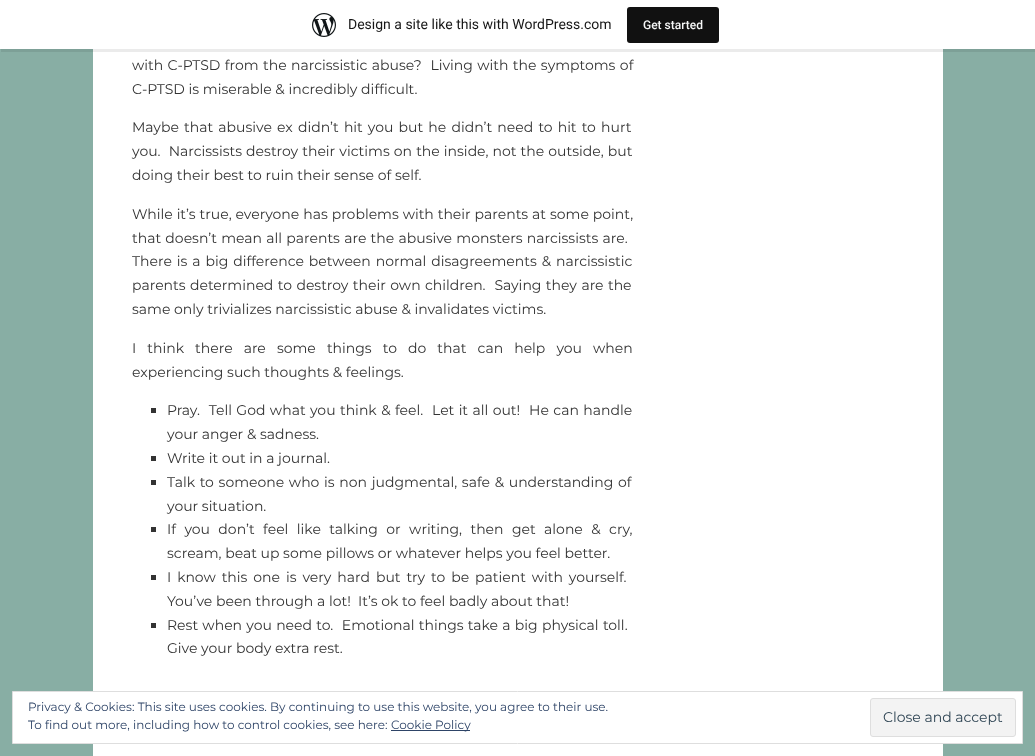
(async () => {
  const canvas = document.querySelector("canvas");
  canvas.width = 1035;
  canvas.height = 756;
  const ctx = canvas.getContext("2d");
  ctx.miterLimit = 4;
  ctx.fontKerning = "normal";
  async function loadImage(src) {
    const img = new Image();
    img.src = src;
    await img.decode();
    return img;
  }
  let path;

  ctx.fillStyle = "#88aea4";
  ctx.fillRect(0, 0, 1035, 756);
  ctx.fillStyle = "#ffffff";
  ctx.fillRect(93, 49, 850, 707);
  ctx.fillStyle = "rgba(0, 0, 0, 0.08)";
  path = new Path2D("M1 49V52H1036V3H1035V49Z");
  ctx.fill(path);
  ctx.fillStyle = "#ffffff";
  ctx.fillRect(0, 0, 1035, 49);
  ctx.drawImage(await loadImage("img/1.png"), 312, 13, 24, 24);
  ctx.fillStyle = "#111111";
  ctx.beginPath();
  ctx.roundRect(627, 7, 92, 36, 3);
  ctx.fill();
  for (const [x, y, w, h, color] of [
    [151, 408, 5, 5, "#333333"],
    [151, 456, 5, 5, "#333333"],
    [151, 480, 5, 5, "#333333"],
    [151, 527, 5, 5, "#333333"],
    [151, 575, 5, 5, "#333333"],
    [151, 623, 5, 5, "#333333"],
  ]) {
    ctx.fillStyle = color;
    ctx.fillRect(x, y, w, h);
  }
  ctx.fillStyle = "#ffffff";
  ctx.beginPath();
  ctx.rect(12.5, 691.5, 1010, 52);
  ctx.fill();
  ctx.strokeStyle = "#dedede";
  ctx.stroke();
  ctx.fillStyle = "#2e4467";
  ctx.fillRect(391, 730, 79, 1);
  ctx.fillStyle = "#f3f3f3";
  ctx.beginPath();
  ctx.roundRect(870.5, 698.5, 145, 38, 2.5);
  ctx.fill();
  ctx.stroke();
  ctx.font = "14px Roboto";
  ctx.fillStyle = "#171717";
  ctx.fillText("Design a site like this with WordPress.com", 348, 29);
  ctx.font = "500 12px Roboto";
  ctx.fillStyle = "#f6f7f7";
  ctx.fillText("Get started", 643, 29);
  ctx.wordSpacing = "0.75px";
  ctx.font = "14px Montserrat";
  ctx.fillStyle = "#333333";
  ctx.fillText("with C-PTSD from the narcissistic abuse?  Living with the symptoms of", 132, 70);
  ctx.wordSpacing = "0px";
  ctx.fillText("C-PTSD is miserable & incredibly difficult.", 132, 94);
  ctx.wordSpacing = "1.5px";
  ctx.fillText("Maybe that abusive ex didn’t hit you but he didn’t need to hit to hurt", 132, 132);
  ctx.wordSpacing = "0.4px";
  ctx.fillText("you.  Narcissists destroy their victims on the inside, not the outside, but", 132, 156);
  ctx.wordSpacing = "0px";
  ctx.fillText("doing their best to ruin their sense of self.", 132, 180);
  ctx.wordSpacing = "0.25px";
  ctx.fillText("While it’s true, everyone has problems with their parents at some point,", 132, 219);
  ctx.wordSpacing = "0.6px";
  ctx.fillText("that doesn’t mean all parents are the abusive monsters narcissists are.", 132, 243);
  ctx.wordSpacing = "1.25px";
  ctx.fillText("There is a big difference between normal disagreements & narcissistic", 132, 266);
  ctx.wordSpacing = "0.75px";
  ctx.fillText("parents determined to destroy their own children.  Saying they are the", 132, 290);
  ctx.wordSpacing = "0px";
  ctx.fillText("same only trivializes narcissistic abuse & invalidates victims.", 132, 314);
  ctx.wordSpacing = "7.4px";
  ctx.fillText("I think there are some things to do that can help you when", 132, 353);
  ctx.wordSpacing = "0px";
  ctx.fillText("experiencing such thoughts & feelings.", 132, 377);
  ctx.wordSpacing = "0.75px";
  ctx.fillText("Pray.  Tell God what you think & feel.  Let it all out!  He can handle", 167, 415);
  ctx.wordSpacing = "0px";
  ctx.fillText("your anger & sadness.", 167, 439);
  ctx.fillText("Write it out in a journal.", 167, 463);
  ctx.wordSpacing = "1px";
  ctx.fillText("Talk to someone who is non judgmental, safe & understanding of", 167, 487);
  ctx.wordSpacing = "0px";
  ctx.fillText("your situation.", 167, 511);
  ctx.wordSpacing = "4.75px";
  ctx.fillText("If you don’t feel like talking or writing, then get alone & cry,", 167, 534);
  ctx.wordSpacing = "0px";
  ctx.fillText("scream, beat up some pillows or whatever helps you feel better.", 167, 558);
  ctx.wordSpacing = "2.25px";
  ctx.fillText("I know this one is very hard but try to be patient with yourself.", 167, 582);
  ctx.wordSpacing = "0px";
  ctx.fillText("You’ve been through a lot!  It’s ok to feel badly about that!", 167, 606);
  ctx.wordSpacing = "0.6px";
  ctx.fillText("Rest when you need to.  Emotional things take a big physical toll.", 167, 630);
  ctx.wordSpacing = "0px";
  ctx.fillText("Give your body extra rest.", 167, 653);
  ctx.font = "12px Montserrat";
  ctx.fillStyle = "#2e4467";
  for (const [text, x, y] of [
    ["Privacy & Cookies: This site uses cookies. By continuing to use this website, you agree to their use.", 28, 711],
    ["To find out more, including how to control cookies, see here:", 28, 729],
    ["Cookie Policy", 391, 729],
  ]) {
    ctx.fillText(text, x, y);
  }
  ctx.font = "14px Montserrat";
  ctx.fillStyle = "#2e4453";
  ctx.fillText("Close and accept", 883, 722);
})();
